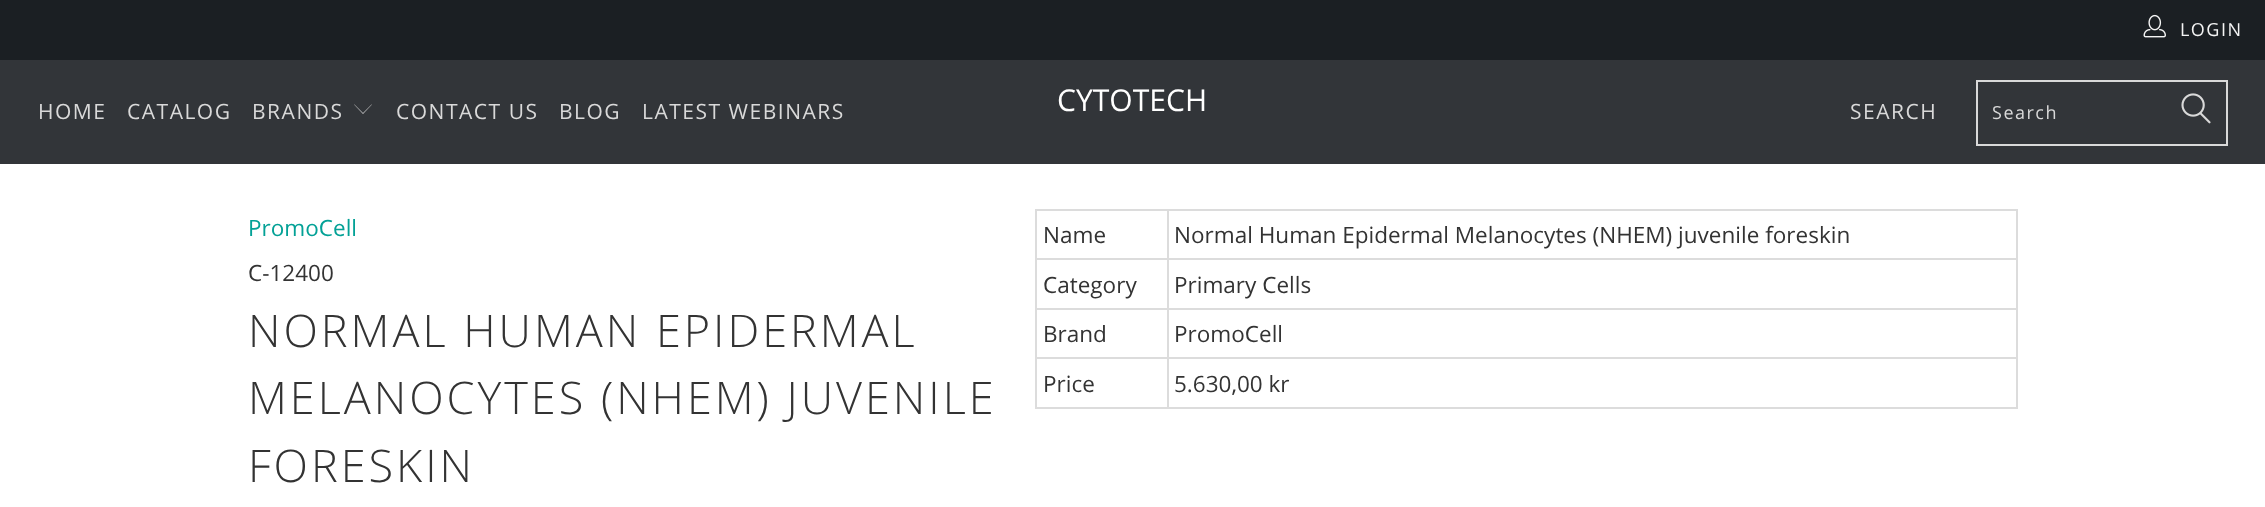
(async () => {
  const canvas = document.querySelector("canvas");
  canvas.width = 2265;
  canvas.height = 507;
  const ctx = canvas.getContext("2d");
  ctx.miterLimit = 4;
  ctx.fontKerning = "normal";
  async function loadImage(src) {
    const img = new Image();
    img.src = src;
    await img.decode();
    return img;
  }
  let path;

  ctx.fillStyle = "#ffffff";
  ctx.fillRect(0, 0, 2265, 507);
  ctx.fillStyle = "#1b1f23";
  ctx.fillRect(0, 0, 2265, 60);
  ctx.drawImage(await loadImage("img/1.png"), 2143, 14, 23, 24);
  ctx.fillStyle = "#323539";
  ctx.fillRect(0, 60, 2265, 104);
  ctx.fillStyle = "#d9d9d9";
  path = new Path2D("M363 114L354 104.5H354.5L363 113L371.5 104.5H372Z");
  ctx.fill(path);
  ctx.strokeStyle = "#d9d9d9";
  ctx.lineWidth = 2;
  ctx.strokeRect(1977, 81, 250, 64);
  ctx.drawImage(await loadImage("img/2.png"), 2181, 93, 30, 31);
  for (const [x, y, w, h, color] of [
    [1035, 209, 983, 2, "#dcdcdc"],
    [1035, 258, 983, 2, "#dcdcdc"],
    [1035, 308, 983, 2, "#dcdcdc"],
    [1035, 357, 983, 2, "#dcdcdc"],
    [1035, 407, 983, 2, "#dcdcdc"],
    [1167, 209, 2, 199, "#dcdcdc"],
    [1035, 209, 2, 199, "#dcdcdc"],
    [2016, 209, 2, 199, "#dcdcdc"],
  ]) {
    ctx.fillStyle = color;
    ctx.fillRect(x, y, w, h);
  }
  ctx.letterSpacing = "1.5px";
  ctx.font = "18px Open Sans";
  ctx.fillStyle = "#f4f4f4";
  ctx.fillText("LOGIN", 2180, 36);
  ctx.font = "21px Open Sans";
  ctx.fillStyle = "#d9d9d9";
  for (const [text, x, y] of [
    ["HOME", 38, 119],
    ["CATALOG", 127, 119],
    ["BRANDS", 252, 119],
    ["CONTACT US", 396, 119],
    ["BLOG", 559, 119],
    ["LATEST WEBINARS", 642, 119],
  ]) {
    ctx.fillText(text, x, y);
  }
  ctx.letterSpacing = "0px";
  ctx.font = "30px Open Sans";
  ctx.fillStyle = "#ffffff";
  ctx.fillText("CYTOTECH", 1057, 111);
  ctx.letterSpacing = "1.5px";
  ctx.font = "21px Open Sans";
  ctx.fillStyle = "#d9d9d9";
  ctx.fillText("SEARCH", 1850, 119);
  ctx.font = "18px Open Sans";
  ctx.fillText("Search", 1992, 119);
  ctx.letterSpacing = "0px";
  ctx.font = "22.5px Open Sans";
  ctx.fillStyle = "#03a196";
  ctx.fillText("PromoCell", 248, 236);
  ctx.fillStyle = "#333333";
  ctx.fillText("C-12400", 248, 281);
  ctx.letterSpacing = "3px";
  ctx.font = "300 45px Open Sans";
  for (const [text, x, y] of [
    ["NORMAL HUMAN EPIDERMAL", 248, 347],
    ["MELANOCYTES (NHEM) JUVENILE", 248, 414],
    ["FORESKIN", 248, 482],
  ]) {
    ctx.fillText(text, x, y);
  }
  ctx.letterSpacing = "0px";
  ctx.font = "22.5px Open Sans";
  for (const [text, x, y] of [
    ["Name", 1043, 243],
    ["Normal Human Epidermal Melanocytes (NHEM) juvenile foreskin", 1174, 243],
    ["Category", 1043, 293],
    ["Primary Cells", 1174, 293],
    ["Brand", 1043, 342],
    ["PromoCell", 1174, 342],
    ["Price", 1043, 392],
    ["5.630,00 kr", 1174, 392],
  ]) {
    ctx.fillText(text, x, y);
  }
})();
